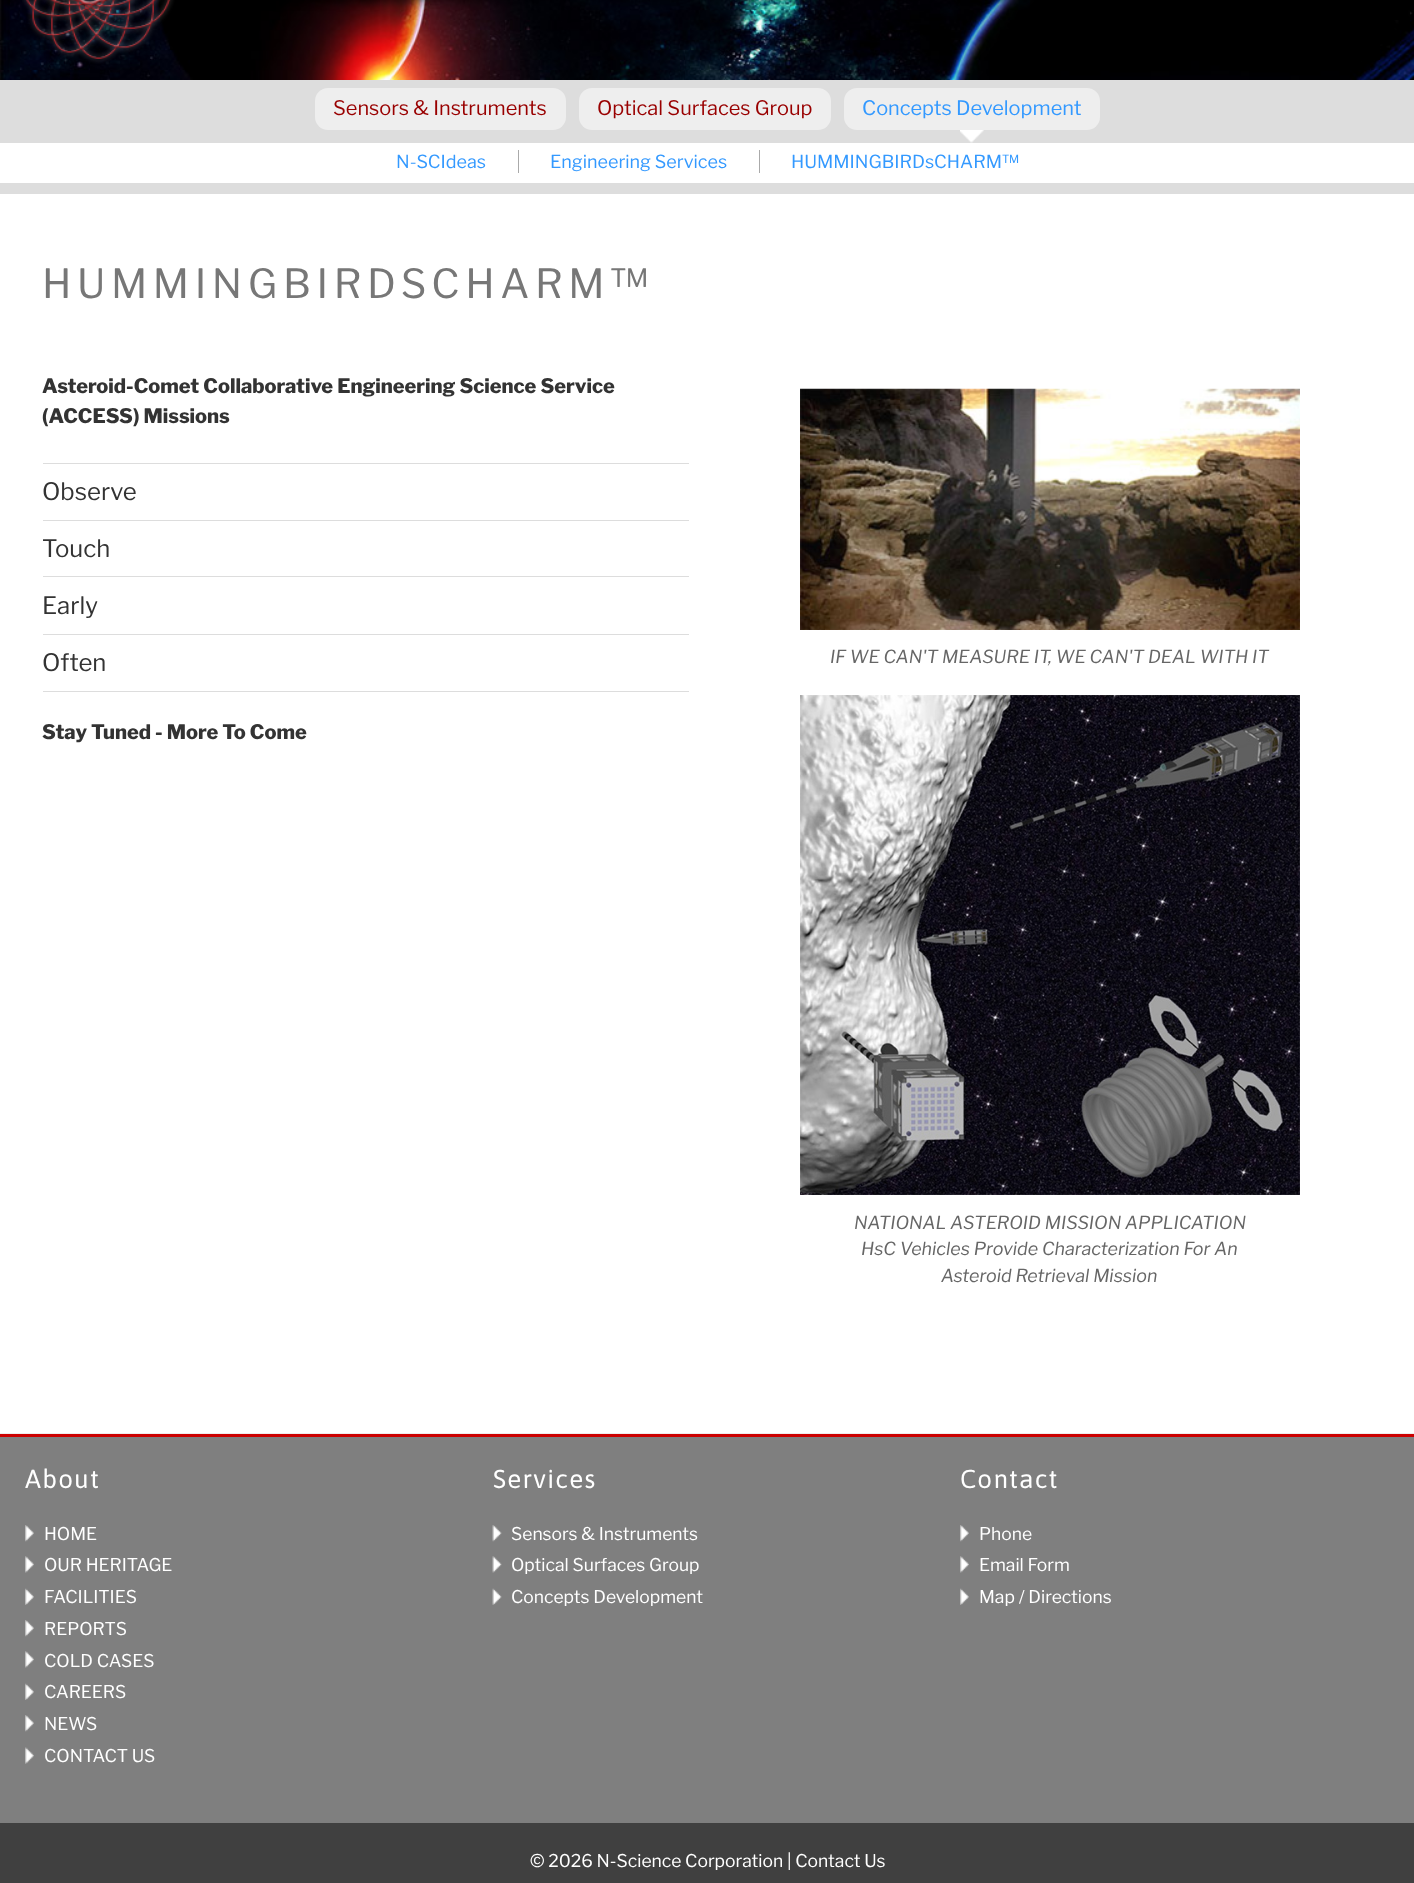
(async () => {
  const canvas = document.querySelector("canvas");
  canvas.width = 1414;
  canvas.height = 1883;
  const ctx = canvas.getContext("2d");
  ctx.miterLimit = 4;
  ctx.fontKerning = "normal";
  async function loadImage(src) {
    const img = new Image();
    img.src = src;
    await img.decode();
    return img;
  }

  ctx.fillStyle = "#ffffff";
  ctx.fillRect(0, 0, 1414, 1883);
  ctx.drawImage(await loadImage("img/1.png"), 0, 0, 1414, 80);
  ctx.drawImage(await loadImage("img/2.png"), 22, 0, 358, 65);
  ctx.fillStyle = "#dddddd";
  ctx.fillRect(0, 80, 1414, 114);
  ctx.fillStyle = "#eeeeee";
  ctx.beginPath();
  ctx.roundRect(315, 88, 251, 42, 13);
  ctx.fill();
  ctx.drawImage(await loadImage("img/3.png"), 960, 130, 24, 13);
  ctx.beginPath();
  ctx.roundRect(844, 88, 256, 42, 13);
  ctx.fill();
  for (const [x, y, w, h, color] of [
    [0, 143, 1414, 40, "#ffffff"],
    [518, 150, 1, 23, "#aaaaaa"],
    [759, 150, 1, 23, "#aaaaaa"],
  ]) {
    ctx.fillStyle = color;
    ctx.fillRect(x, y, w, h);
  }
  ctx.fillStyle = "#eeeeee";
  ctx.beginPath();
  ctx.roundRect(579, 88, 252, 42, 13);
  ctx.fill();
  for (const [x, y, w, h, color] of [
    [43, 463, 646, 1, "#dddddd"],
    [43, 520, 646, 1, "#dddddd"],
    [43, 576, 646, 1, "#dddddd"],
    [43, 634, 646, 1, "#dddddd"],
    [43, 691, 646, 1, "#dddddd"],
  ]) {
    ctx.fillStyle = color;
    ctx.fillRect(x, y, w, h);
  }
  ctx.drawImage(await loadImage("img/4.png"), 800, 388, 500, 242);
  ctx.drawImage(await loadImage("img/5.png"), 800, 695, 500, 500);
  for (const [x, y, w, h, color] of [
    [0, 1433, 1414, 1, "#eeeeee"],
    [0, 1437, 1414, 386, "#7f7f7f"],
    [0, 1434, 1414, 3, "#cc0000"],
  ]) {
    ctx.fillStyle = color;
    ctx.fillRect(x, y, w, h);
  }
  ctx.drawImage(await loadImage("img/6.png"), 25, 1525, 9, 17);
  ctx.drawImage(await loadImage("img/7.png"), 25, 1556, 9, 17);
  ctx.drawImage(await loadImage("img/8.png"), 25, 1588, 9, 17);
  ctx.drawImage(await loadImage("img/6.png"), 25, 1620, 9, 17);
  ctx.drawImage(await loadImage("img/7.png"), 25, 1651, 9, 17);
  ctx.drawImage(await loadImage("img/8.png"), 25, 1683, 9, 17);
  ctx.drawImage(await loadImage("img/6.png"), 25, 1715, 9, 17);
  ctx.drawImage(await loadImage("img/9.png"), 25, 1747, 9, 17);
  ctx.drawImage(await loadImage("img/10.png"), 492, 1525, 10, 17);
  ctx.drawImage(await loadImage("img/11.png"), 492, 1556, 10, 17);
  ctx.drawImage(await loadImage("img/12.png"), 492, 1588, 10, 17);
  ctx.drawImage(await loadImage("img/6.png"), 960, 1525, 9, 17);
  ctx.drawImage(await loadImage("img/7.png"), 960, 1556, 9, 17);
  ctx.drawImage(await loadImage("img/8.png"), 960, 1588, 9, 17);
  ctx.fillStyle = "#404040";
  ctx.fillRect(0, 1823, 1414, 60);
  ctx.font = "100 20px Libre Franklin";
  ctx.fillStyle = "#990000";
  ctx.fillText("Sensors & Instruments", 333, 115);
  ctx.fillStyle = "#3399ff";
  ctx.fillText("Concepts Development", 862, 115);
  ctx.font = "100 18px Libre Franklin";
  for (const [text, x, y] of [
    ["N-SCIdeas", 396, 168],
    ["Engineering Services", 550, 168],
    ["HUMMINGBIRDsCHARM™", 791, 168],
  ]) {
    ctx.fillText(text, x, y);
  }
  ctx.font = "100 20px Libre Franklin";
  ctx.fillStyle = "#990000";
  ctx.fillText("Optical Surfaces Group", 597, 115);
  ctx.letterSpacing = "5.6px";
  ctx.font = "100 40px Libre Franklin";
  ctx.fillStyle = "#777777";
  ctx.fillText("HUMMINGBIRDSCHARM™", 42, 298);
  ctx.letterSpacing = "0px";
  ctx.font = "100 20px 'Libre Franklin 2'";
  ctx.fillStyle = "#333333";
  ctx.fillText("Asteroid-Comet Collaborative Engineering Science Service", 42, 393);
  ctx.fillText("(ACCESS) Missions", 42, 423);
  ctx.font = "100 24px Libre Franklin";
  for (const [text, x, y] of [
    ["Observe", 42, 500],
    ["Touch", 42, 557],
    ["Early", 42, 614],
    ["Often", 42, 671],
  ]) {
    ctx.fillText(text, x, y);
  }
  ctx.font = "100 20px 'Libre Franklin 2'";
  ctx.fillText("Stay Tuned - More To Come", 42, 739);
  ctx.font = "italic 100 17.9px Libre Franklin";
  ctx.fillStyle = "#666666";
  for (const [text, x, y] of [
    ["IF WE CAN'T MEASURE IT, WE CAN'T DEAL WITH IT", 830, 663],
    ["NATIONAL ASTEROID MISSION APPLICATION", 854, 1229],
    ["HsC Vehicles Provide Characterization For An", 861, 1255],
    ["Asteroid Retrieval Mission", 941, 1282],
  ]) {
    ctx.fillText(text, x, y);
  }
  ctx.letterSpacing = "1.25px";
  ctx.font = "26px Asap";
  ctx.fillStyle = "#ffffff";
  ctx.fillText("About", 25, 1488);
  ctx.letterSpacing = "0px";
  ctx.font = "100 17.5px Libre Franklin";
  for (const [text, x, y] of [
    ["HOME", 44, 1540],
    ["OUR HERITAGE", 44, 1571],
    ["FACILITIES", 44, 1603],
    ["REPORTS", 44, 1635],
    ["COLD CASES", 44, 1667],
    ["CAREERS", 44, 1698],
    ["NEWS", 44, 1730],
    ["CONTACT US", 44, 1762],
  ]) {
    ctx.fillText(text, x, y);
  }
  ctx.letterSpacing = "1.25px";
  ctx.font = "26px Asap";
  ctx.fillText("Services", 493, 1488);
  ctx.letterSpacing = "0px";
  ctx.font = "100 17.5px Libre Franklin";
  for (const [text, x, y] of [
    ["Sensors & Instruments", 511, 1540],
    ["Optical Surfaces Group", 511, 1571],
    ["Concepts Development", 511, 1603],
  ]) {
    ctx.fillText(text, x, y);
  }
  ctx.letterSpacing = "1.25px";
  ctx.font = "26px Asap";
  ctx.fillText("Contact", 960, 1488);
  ctx.letterSpacing = "0px";
  ctx.font = "100 17.5px Libre Franklin";
  for (const [text, x, y] of [
    ["Phone", 979, 1540],
    ["Email Form", 979, 1571],
    ["Map / Directions", 979, 1603],
    ["© 2026 N-Science Corporation | Contact Us", 530, 1867],
  ]) {
    ctx.fillText(text, x, y);
  }
})();
